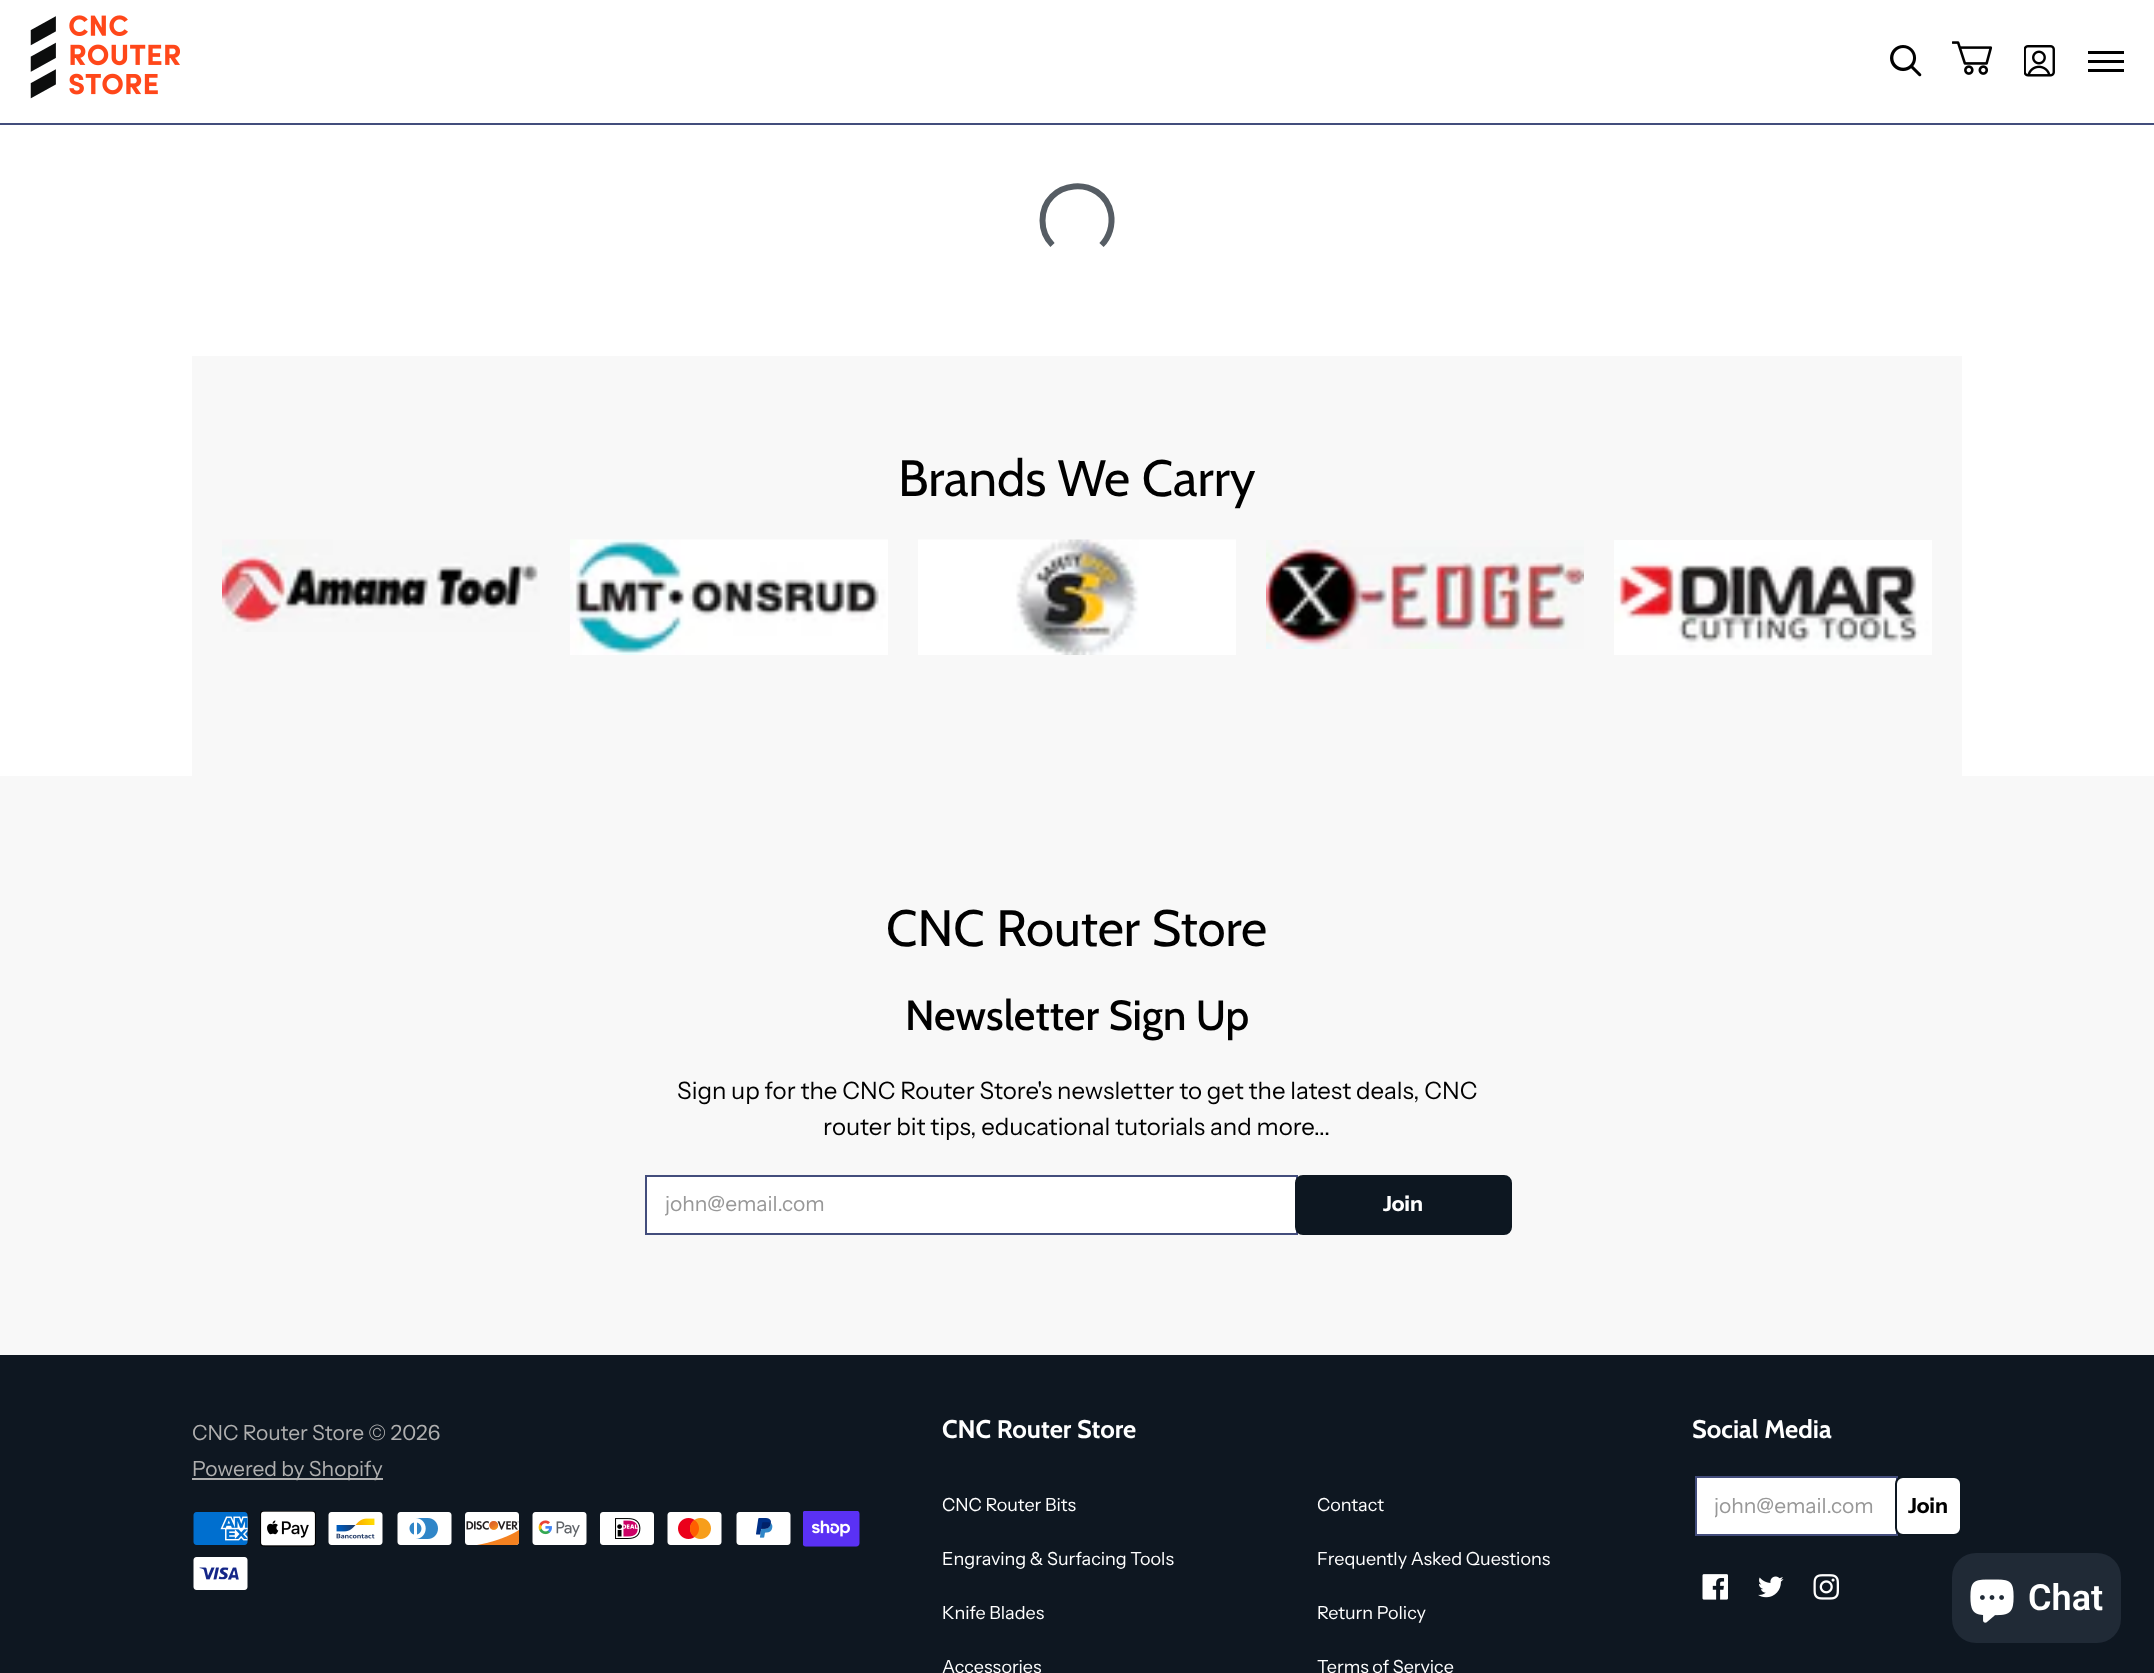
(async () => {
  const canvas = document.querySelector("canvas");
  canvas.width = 2154;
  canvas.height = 1673;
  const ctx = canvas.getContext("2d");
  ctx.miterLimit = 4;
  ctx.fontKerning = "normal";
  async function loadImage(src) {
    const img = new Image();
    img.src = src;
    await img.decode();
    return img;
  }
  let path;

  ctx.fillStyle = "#ffffff";
  ctx.fillRect(0, 0, 2154, 1673);
  ctx.fillStyle = "#434d7c";
  ctx.fillRect(0, 123, 2154, 2);
  ctx.drawImage(await loadImage("img/1.png"), 30, 15, 150, 84);
  ctx.drawImage(await loadImage("img/2.png"), 1890, 45, 32, 32);
  ctx.drawImage(await loadImage("img/3.png"), 1952, 41, 41, 34);
  ctx.drawImage(await loadImage("img/4.png"), 2024, 45, 31, 32);
  for (const [x, y, w, h, color] of [
    [2088, 51, 36, 3, "#000000"],
    [2088, 69, 36, 3, "#000000"],
    [2088, 60, 36, 3, "#000000"],
  ]) {
    ctx.fillStyle = color;
    ctx.fillRect(x, y, w, h);
  }
  path = new Path2D("M1052.5 245C1046 238.5 1042.5 229.5 1042.5 220.5C1042.5 179 1103 173.5 1111 213.5C1113 225 1109.5 237 1101.5 245");
  ctx.strokeStyle = "#565d64";
  ctx.lineWidth = 6;
  ctx.stroke(path);
  ctx.fillStyle = "#f8f8f8";
  ctx.fillRect(192, 356, 1770, 420);
  ctx.drawImage(await loadImage("img/5.png"), 222, 539, 318, 93);
  ctx.drawImage(await loadImage("img/6.png"), 570, 539, 318, 116);
  ctx.drawImage(await loadImage("img/7.png"), 918, 539, 318, 116);
  ctx.drawImage(await loadImage("img/8.png"), 1266, 540, 318, 109);
  ctx.drawImage(await loadImage("img/9.png"), 1614, 540, 318, 115);
  ctx.fillRect(0, 776, 2154, 579);
  ctx.fillStyle = "#ffffff";
  ctx.beginPath();
  ctx.rect(646, 1176, 651, 58);
  ctx.fill();
  ctx.strokeStyle = "#434d7c";
  ctx.lineWidth = 2;
  ctx.stroke();
  ctx.fillStyle = "#0d1721";
  ctx.beginPath();
  ctx.roundRect(1296, 1176, 215, 58, 7);
  ctx.fill();
  ctx.strokeStyle = "#0d1721";
  ctx.stroke();
  ctx.fillStyle = "#0e1721";
  ctx.fillRect(0, 1355, 2154, 318);
  ctx.fillStyle = "#afafaf";
  ctx.fillRect(192, 1478, 191, 2);
  ctx.drawImage(await loadImage("img/10.png"), 193, 1512, 55, 33);
  ctx.drawImage(await loadImage("img/11.png"), 260, 1511, 56, 36);
  ctx.drawImage(await loadImage("img/12.png"), 328, 1512, 55, 33);
  ctx.drawImage(await loadImage("img/13.png"), 397, 1512, 55, 33);
  ctx.drawImage(await loadImage("img/14.png"), 465, 1512, 55, 33);
  ctx.drawImage(await loadImage("img/15.png"), 532, 1512, 55, 33);
  ctx.drawImage(await loadImage("img/16.png"), 600, 1512, 54, 33);
  ctx.drawImage(await loadImage("img/17.png"), 667, 1512, 55, 33);
  ctx.drawImage(await loadImage("img/18.png"), 736, 1512, 55, 33);
  ctx.drawImage(await loadImage("img/19.png"), 803, 1511, 57, 36);
  ctx.drawImage(await loadImage("img/20.png"), 193, 1557, 55, 33);
  ctx.fillStyle = "#ffffff";
  ctx.beginPath();
  ctx.rect(1696, 1477, 201, 58);
  ctx.fill();
  ctx.strokeStyle = "#434d7c";
  ctx.stroke();
  ctx.beginPath();
  ctx.roundRect(1896, 1477, 65, 58, 7);
  ctx.fill();
  ctx.strokeStyle = "#0d1721";
  ctx.stroke();
  ctx.drawImage(await loadImage("img/21.png"), 1702, 1574, 26, 26);
  ctx.drawImage(await loadImage("img/22.png"), 1758, 1576, 26, 22);
  ctx.drawImage(await loadImage("img/23.png"), 1813, 1574, 26, 26);
  ctx.fillStyle = "#202a36";
  ctx.beginPath();
  ctx.roundRect(1952, 1553, 169, 90, 24);
  ctx.fill();
  ctx.drawImage(await loadImage("img/24.png"), 1970, 1579, 44, 44);
  ctx.font = "51px Cabin";
  ctx.fillStyle = "#000000";
  ctx.fillText("Brands We Carry", 898, 496);
  ctx.fillText("CNC Router Store", 886, 946);
  ctx.font = "500 42px Cabin";
  ctx.fillText("Newsletter Sign Up", 905, 1030);
  ctx.font = "24px Instrument Sans";
  ctx.fillText("Sign up for the CNC Router Store's newsletter to get the latest deals, CNC", 677, 1099);
  ctx.fillText("router bit tips, educational tutorials and more...", 823, 1135);
  ctx.save();
  ctx.beginPath();
  ctx.rect(665, 1190, 613, 27);
  ctx.clip();
  ctx.font = "21px Instrument Sans";
  ctx.fillStyle = "#989898";
  ctx.fillText("john@email.com", 665, 1211);
  ctx.restore();
  ctx.font = "bold 21px Instrument Sans";
  ctx.fillStyle = "#ffffff";
  ctx.fillText("Join", 1383, 1211);
  ctx.font = "21px Instrument Sans";
  ctx.fillStyle = "#afafaf";
  ctx.fillText("CNC Router Store © 2026", 192, 1440);
  ctx.fillText("Powered by Shopify", 192, 1476);
  ctx.font = "bold 25.5px Cabin";
  ctx.fillStyle = "#ffffff";
  ctx.fillText("CNC Router Store", 942, 1438);
  ctx.font = "18px Instrument Sans";
  for (const [text, x, y] of [
    ["CNC Router Bits", 942, 1511],
    ["Engraving & Surfacing Tools", 942, 1565],
    ["Knife Blades", 942, 1619],
    ["Accessories", 942, 1673],
    ["Contact", 1317, 1511],
    ["Frequently Asked Questions", 1317, 1565],
    ["Return Policy", 1317, 1619],
    ["Terms of Service", 1317, 1673],
  ]) {
    ctx.fillText(text, x, y);
  }
  ctx.font = "bold 25.5px Cabin";
  ctx.fillText("Social Media", 1692, 1438);
  ctx.save();
  ctx.beginPath();
  ctx.rect(1715, 1491, 163, 27);
  ctx.clip();
  ctx.font = "21px Instrument Sans";
  ctx.fillStyle = "#989898";
  ctx.fillText("john@email.com", 1714, 1513);
  ctx.restore();
  ctx.font = "bold 21px Instrument Sans";
  ctx.fillStyle = "#000000";
  ctx.fillText("Join", 1908, 1513);
  ctx.font = "600 36px Roboto";
  ctx.fillStyle = "#ffffff";
  ctx.fillText("Chat", 2028, 1610);
})();
